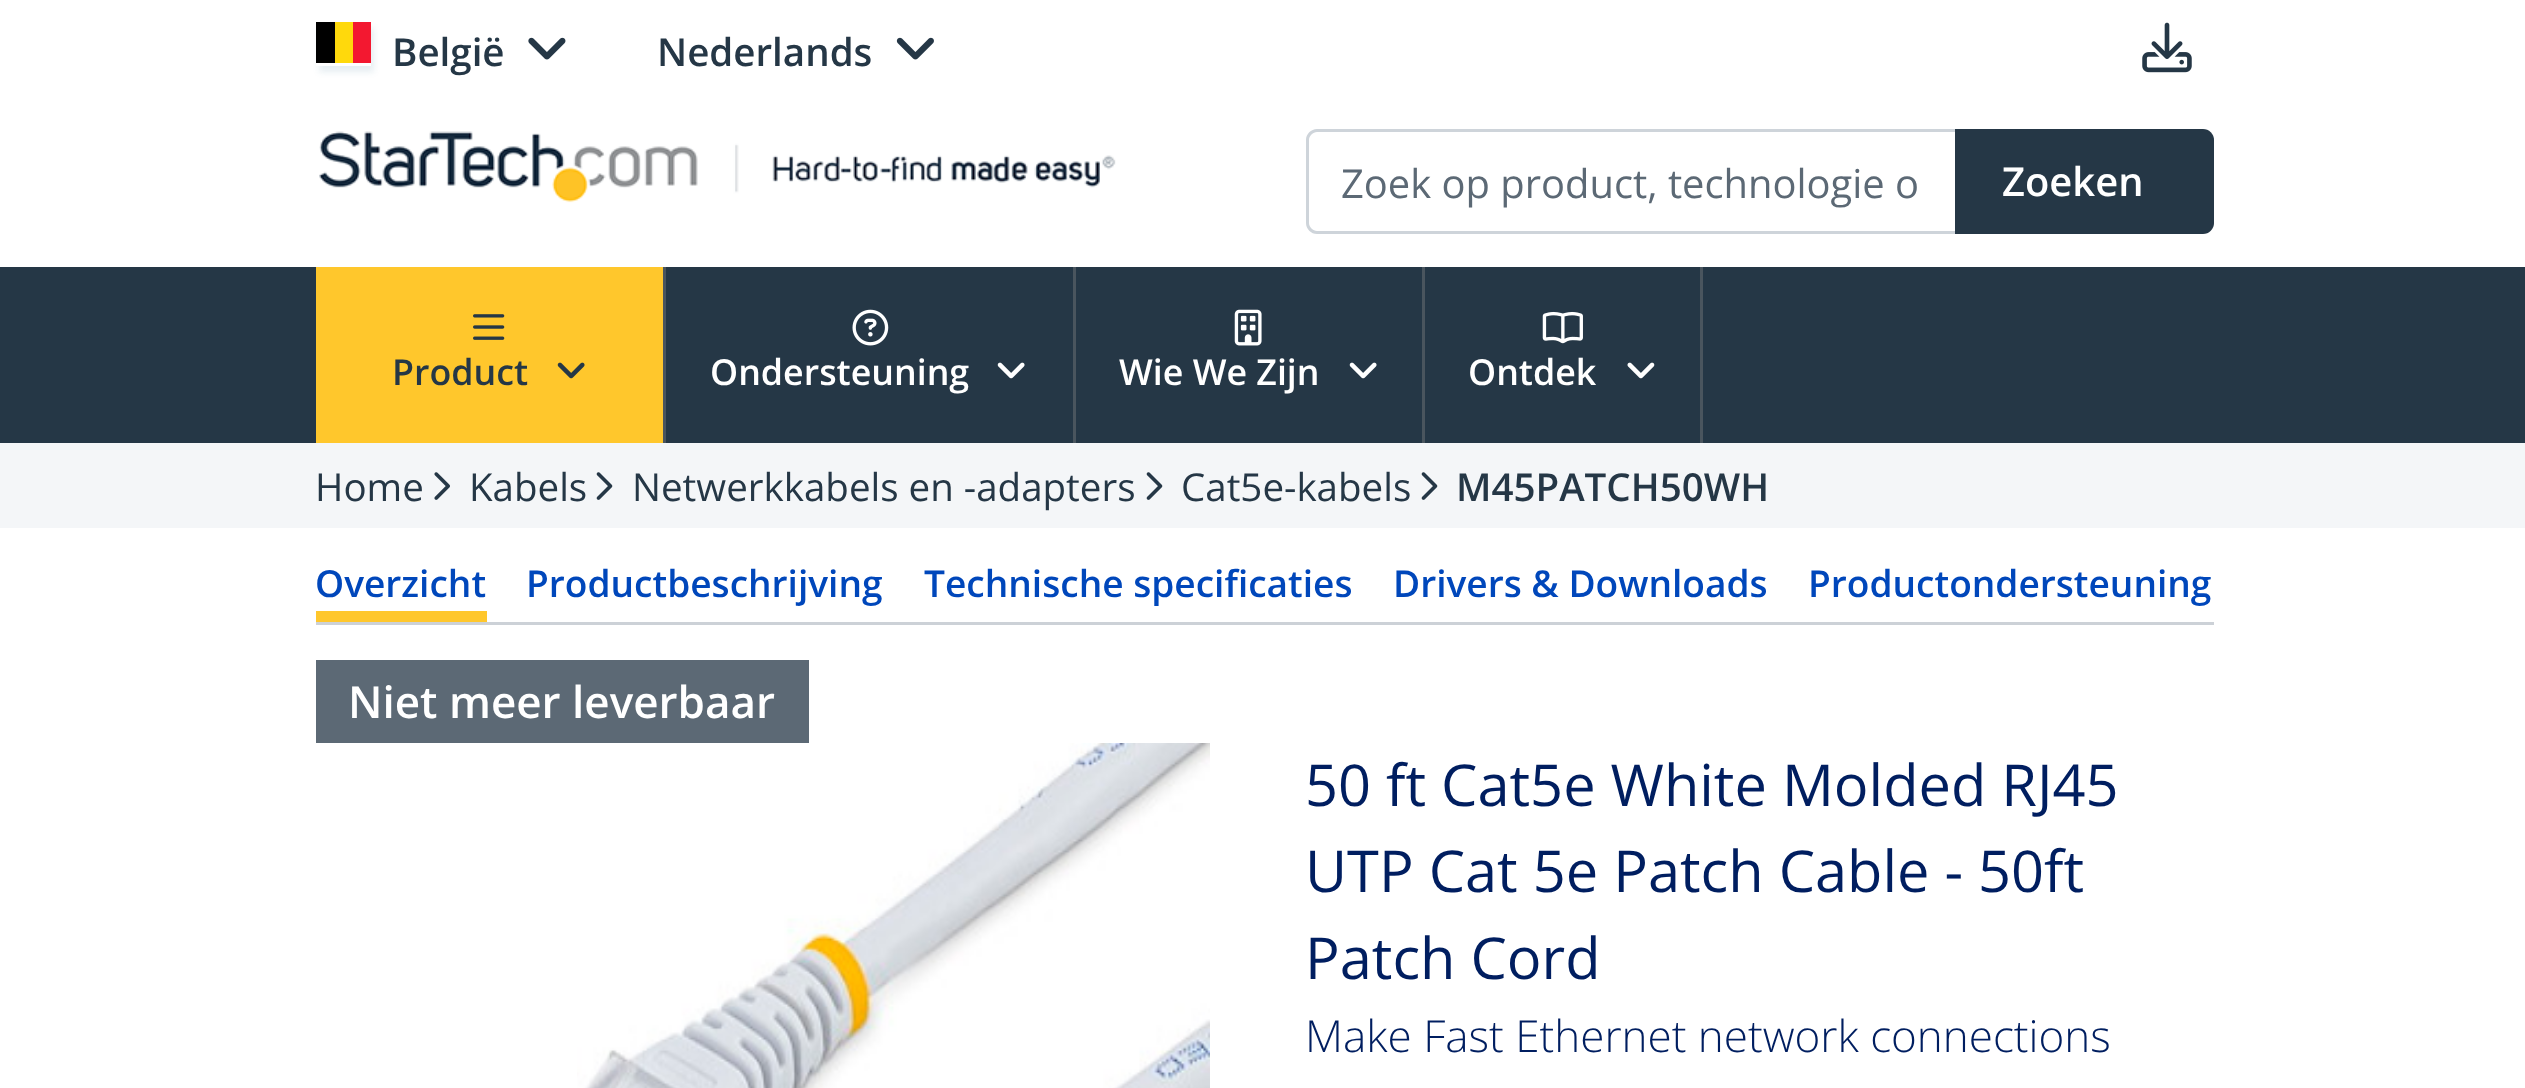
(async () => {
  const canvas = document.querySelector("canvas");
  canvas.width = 2525;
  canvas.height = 1088;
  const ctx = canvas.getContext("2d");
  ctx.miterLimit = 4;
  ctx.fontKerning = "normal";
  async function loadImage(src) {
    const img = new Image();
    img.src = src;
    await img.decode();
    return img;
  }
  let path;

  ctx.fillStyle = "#ffffff";
  ctx.fillRect(0, 0, 2525, 1088);
  ctx.save();
  path = new Path2D("M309 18H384V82H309ZM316 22H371V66H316Z");
  ctx.clip(path, "evenodd");
  ctx.fillStyle = "rgba(11, 87, 128, 0.1)";
  ctx.filter = "blur(3px)";
  ctx.beginPath();
  ctx.rect(319, 28, 55, 44);
  ctx.fill();
  ctx.filter = "none";
  ctx.restore();
  for (const [x, y, w, h, color] of [
    [316, 22, 19, 41, "#000000"],
    [335, 22, 18, 41, "#ffd90c"],
    [353, 22, 18, 41, "#f31830"],
  ]) {
    ctx.fillStyle = color;
    ctx.fillRect(x, y, w, h);
  }
  ctx.drawImage(await loadImage("img/1.png"), 528, 37, 38, 23);
  ctx.drawImage(await loadImage("img/2.png"), 896, 37, 38, 23);
  ctx.drawImage(await loadImage("img/3.png"), 2142, 22, 50, 51);
  ctx.drawImage(await loadImage("img/4.png"), 319, 131, 797, 72);
  ctx.fillStyle = "#253746";
  ctx.beginPath();
  ctx.roundRect(1933, 129, 281, 105, [0, 11, 11, 0]);
  ctx.fill();
  ctx.fillStyle = "#ffffff";
  ctx.beginPath();
  ctx.roundRect(1309, 132, 646, 99, [8, 0, 0, 8]);
  ctx.fill();
  ctx.fillStyle = "#ced4da";
  path = new Path2D("M1317 129H1955V234H1317C1311 234 1306 229 1306 223V140C1306 134 1311 129 1317 129ZM1317 132H1955V231H1317C1313 231 1309 227 1309 223V140C1309 136 1313 132 1317 132Z");
  ctx.fill(path, "evenodd");
  for (const [x, y, w, h, color] of [
    [0, 267, 2525, 176, "#253746"],
    [316, 267, 347, 176, "#ffc72c"],
    [663, 267, 3, 176, "#4a555e"],
  ]) {
    ctx.fillStyle = color;
    ctx.fillRect(x, y, w, h);
  }
  ctx.drawImage(await loadImage("img/5.png"), 473, 314, 32, 26);
  ctx.drawImage(await loadImage("img/6.png"), 557, 362, 28, 17);
  ctx.fillRect(1073, 267, 3, 176);
  ctx.drawImage(await loadImage("img/7.png"), 852, 309, 37, 37);
  ctx.drawImage(await loadImage("img/8.png"), 997, 362, 28, 17);
  ctx.fillRect(1422, 267, 3, 176);
  ctx.drawImage(await loadImage("img/9.png"), 1234, 309, 28, 37);
  ctx.drawImage(await loadImage("img/8.png"), 1349, 362, 28, 17);
  ctx.fillRect(1700, 267, 3, 176);
  ctx.drawImage(await loadImage("img/10.png"), 1542, 311, 41, 33);
  ctx.drawImage(await loadImage("img/11.png"), 1627, 362, 28, 17);
  ctx.fillStyle = "#f4f6f8";
  ctx.fillRect(0, 443, 2525, 85);
  ctx.drawImage(await loadImage("img/12.png"), 434, 472, 16, 28);
  ctx.drawImage(await loadImage("img/13.png"), 596, 472, 17, 28);
  ctx.drawImage(await loadImage("img/13.png"), 1146, 472, 17, 28);
  ctx.drawImage(await loadImage("img/13.png"), 1421, 472, 17, 28);
  for (const [x, y, w, h, color] of [
    [316, 622, 1898, 3, "#ccd1d7"],
    [316, 611, 171, 11, "#ffc72c"],
    [316, 660, 493, 83, "#5c6975"],
  ]) {
    ctx.fillStyle = color;
    ctx.fillRect(x, y, w, h);
  }
  ctx.drawImage(await loadImage("img/14.png"), 577, 743, 633, 345);
  ctx.font = "600 38.5px Open Sans";
  ctx.fillStyle = "#253746";
  ctx.fillText("België", 392, 66);
  ctx.fillText("Nederlands", 657, 66);
  ctx.font = "39.9px Open Sans";
  ctx.fillStyle = "#5c6975";
  ctx.fillText("Zoek op product, technologie o", 1341, 198);
  ctx.font = "600 39.9px Open Sans";
  ctx.fillStyle = "#ffffff";
  ctx.fillText("Zoeken", 2002, 196);
  ctx.font = "600 35.75px Open Sans";
  ctx.fillStyle = "#253746";
  ctx.fillText("Product", 392, 385);
  ctx.fillStyle = "#ffffff";
  for (const [text, x, y] of [
    ["Ondersteuning", 710, 385],
    ["Wie We Zijn", 1119, 385],
    ["Ontdek", 1468, 385],
  ]) {
    ctx.fillText(text, x, y);
  }
  ctx.font = "38.5px Open Sans";
  ctx.fillStyle = "#253746";
  for (const [text, x, y] of [
    ["Home", 315, 501],
    ["Kabels", 469, 501],
    ["Netwerkkabels en -adapters", 632, 501],
    ["Cat5e-kabels", 1181, 501],
  ]) {
    ctx.fillText(text, x, y);
  }
  ctx.font = "600 38.5px Open Sans";
  ctx.fillText("M45PATCH50WH", 1456, 501);
  ctx.font = "600 37.1px Open Sans";
  ctx.fillStyle = "#0047bb";
  for (const [text, x, y] of [
    ["Overzicht", 315, 597],
    ["Productbeschrijving", 526, 597],
    ["Technische specificaties", 924, 597],
    ["Drivers & Downloads", 1393, 597],
    ["Productondersteuning", 1808, 597],
  ]) {
    ctx.fillText(text, x, y);
  }
  ctx.font = "600 44px Open Sans";
  ctx.fillStyle = "#ffffff";
  ctx.fillText("Niet meer leverbaar", 348, 718);
  ctx.font = "57.75px Open Sans";
  ctx.fillStyle = "#001e60";
  for (const [text, x, y] of [
    ["50 ft Cat5e White Molded RJ45", 1305, 806],
    ["UTP Cat 5e Patch Cable - 50ft", 1305, 892],
    ["Patch Cord", 1305, 979],
  ]) {
    ctx.fillText(text, x, y);
  }
  ctx.font = "300 44px Open Sans";
  ctx.fillText("Make Fast Ethernet network connections", 1305, 1052);
})();
